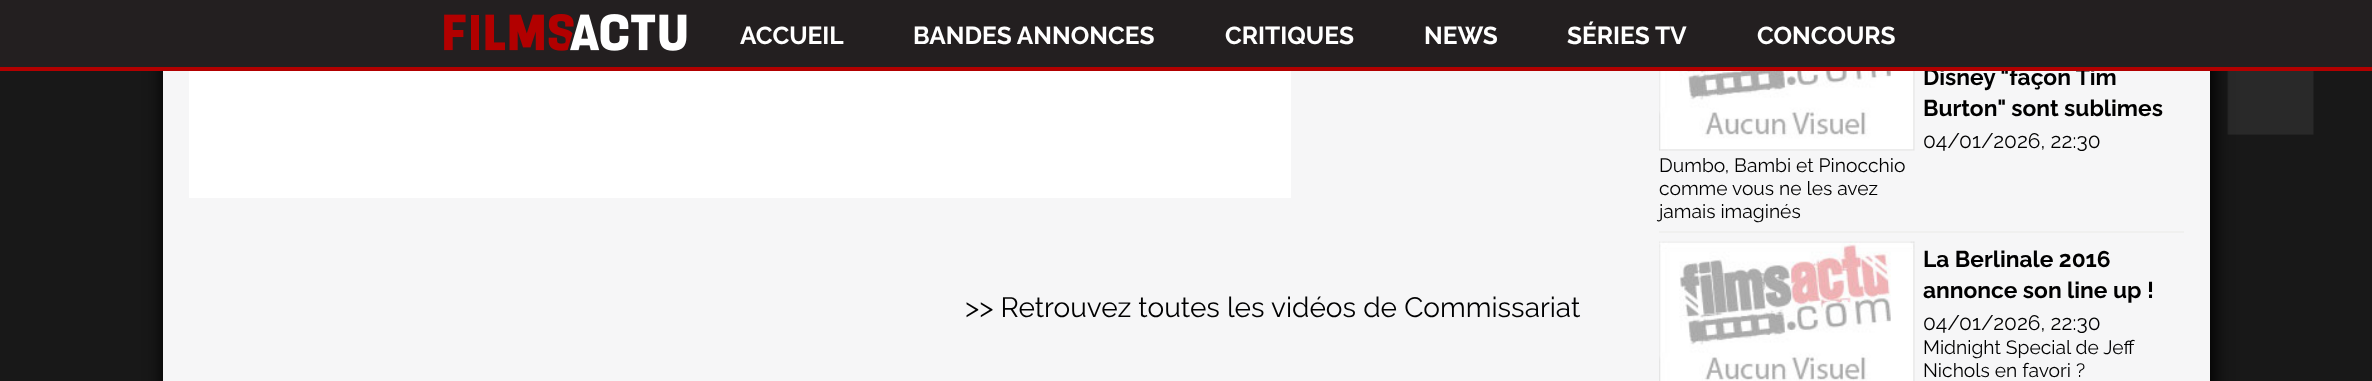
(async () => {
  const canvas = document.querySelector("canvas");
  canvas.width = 2372;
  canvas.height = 381;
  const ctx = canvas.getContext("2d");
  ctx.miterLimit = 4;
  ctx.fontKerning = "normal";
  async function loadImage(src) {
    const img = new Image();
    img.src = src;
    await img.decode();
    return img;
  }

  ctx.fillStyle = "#181818";
  ctx.fillRect(0, 0, 2372, 381);
  ctx.drawImage(await loadImage("img/1.png"), 2227, 71, 87, 64);
  ctx.fillStyle = "#000000";
  ctx.filter = "blur(9px)";
  ctx.beginPath();
  ctx.rect(163, -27, 2051, 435);
  ctx.fill();
  ctx.filter = "none";
  ctx.fillStyle = "#231f20";
  ctx.fillRect(0, 0, 2372, 67);
  ctx.drawImage(await loadImage("img/2.png"), 444, 14, 243, 37);
  for (const [x, y, w, h, color] of [
    [163, 71, 2047, 310, "#f6f6f7"],
    [189, 71, 1102, 127, "#ffffff"],
    [1659, 231, 525, 2, "#f0f0ef"],
  ]) {
    ctx.fillStyle = color;
    ctx.fillRect(x, y, w, h);
  }
  ctx.drawImage(await loadImage("img/3.png"), 1659, 71, 256, 80);
  ctx.drawImage(await loadImage("img/4.png"), 1659, 241, 256, 140);
  ctx.font = "bold 24.5px Raleway";
  ctx.fillStyle = "#ffffff";
  for (const [text, x, y] of [
    ["ACCUEIL", 740, 44],
    ["BANDES ANNONCES", 913, 44],
    ["CRITIQUES", 1225, 44],
    ["NEWS", 1424, 44],
    ["SÉRIES TV", 1567, 44],
    ["CONCOURS", 1757, 44],
  ]) {
    ctx.fillText(text, x, y);
  }
  ctx.font = "28px Raleway";
  ctx.fillStyle = "#000000";
  ctx.fillText(">> Retrouvez toutes les vidéos de Commissariat", 965, 317);
  ctx.font = "bold 22.75px Raleway";
  ctx.fillText("Disney \"façon Tim", 1923, 85);
  ctx.fillStyle = "#b20000";
  ctx.fillRect(0, 67, 2372, 4);
  ctx.fillStyle = "#000000";
  ctx.fillText("Burton\" sont sublimes", 1923, 116);
  ctx.font = "21px Raleway";
  ctx.fillText("04/01/2026, 22:30", 1923, 148);
  ctx.font = "19.25px Raleway";
  for (const [text, x, y] of [
    ["Dumbo, Bambi et Pinocchio", 1659, 172],
    ["comme vous ne les avez", 1659, 195],
    ["jamais imaginés", 1659, 218],
  ]) {
    ctx.fillText(text, x, y);
  }
  ctx.font = "bold 22.75px Raleway";
  ctx.fillText("La Berlinale 2016", 1923, 267);
  ctx.fillText("annonce son line up !", 1923, 298);
  ctx.font = "21px Raleway";
  ctx.fillText("04/01/2026, 22:30", 1923, 330);
  ctx.font = "19.25px Raleway";
  ctx.fillText("Midnight Special de Jeff", 1923, 354);
  ctx.fillText("Nichols en favori ?", 1923, 377);
})();
